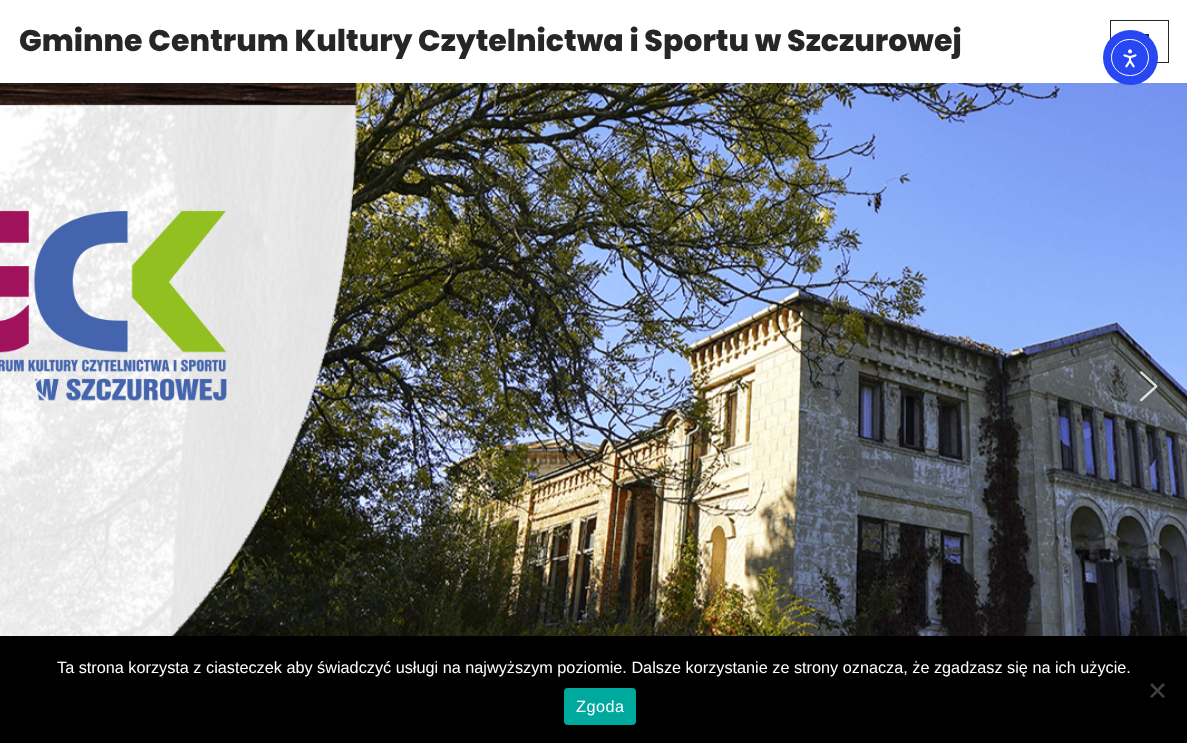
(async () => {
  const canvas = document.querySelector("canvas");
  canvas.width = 1187;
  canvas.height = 743;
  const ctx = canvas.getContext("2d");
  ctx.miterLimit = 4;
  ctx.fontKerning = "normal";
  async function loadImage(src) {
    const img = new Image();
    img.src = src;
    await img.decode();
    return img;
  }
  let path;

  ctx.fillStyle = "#ffffff";
  ctx.fillRect(0, 0, 1187, 743);
  ctx.drawImage(await loadImage("img/1.png"), 0, 83, 357, 553);
  ctx.strokeStyle = "#272626";
  ctx.strokeRect(1110.5, 20.5, 58, 42);
  ctx.fillStyle = "#272626";
  ctx.fillRect(1144, 34, 5, 3);
  ctx.drawImage(await loadImage("img/3.png"), 171, 83, 1016, 553);
  ctx.drawImage(await loadImage("img/2.png"), 0, 210, 227, 191);
  ctx.drawImage(await loadImage("img/4.png"), 30, 371, 18, 30);
  ctx.drawImage(await loadImage("img/5.png"), 1140, 371, 18, 31);
  ctx.fillStyle = "#2847f3";
  ctx.beginPath();
  ctx.arc(1130.5, 57.5, 27.5, 0, Math.PI * 2);
  ctx.fill();
  ctx.beginPath();
  ctx.roundRect(1111.5, 39.5, 37, 36, 18);
  ctx.strokeStyle = "#ffffff";
  ctx.stroke();
  ctx.drawImage(await loadImage("img/6.png"), 1123, 49, 14, 19);
  ctx.fillStyle = "#000000";
  ctx.fillRect(0, 636, 1187, 107);
  ctx.fillStyle = "#404040";
  path = new Path2D("M1163 683L1165 685L1152 698L1150 696.5Z");
  ctx.fill(path);
  path = new Path2D("M1150 685L1152 683L1165 696.5L1163 698Z");
  ctx.fill(path);
  ctx.fillStyle = "#00a99d";
  ctx.beginPath();
  ctx.roundRect(564, 688, 72, 37, 4);
  ctx.fill();
  ctx.font = "800 30px Poppins";
  ctx.fillStyle = "#272626";
  ctx.fillText("Gminne Centrum Kultury Czytelnictwa i Sportu w Szczurowej", 19, 51);
  ctx.font = "16.25px Liberation Sans";
  ctx.fillStyle = "#ffffff";
  ctx.fillText("Ta strona korzysta z ciasteczek aby świadczyć usługi na najwyższym poziomie. Dalsze korzystanie ze strony oznacza, że zgadzasz się na ich użycie.", 57, 673);
  ctx.letterSpacing = "0.5px";
  ctx.fillText("Zgoda", 576, 712);
})();
